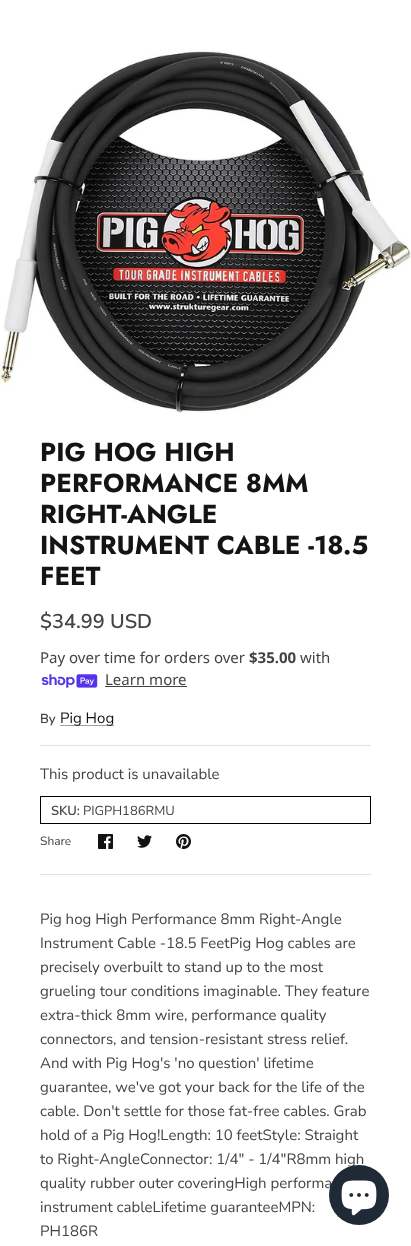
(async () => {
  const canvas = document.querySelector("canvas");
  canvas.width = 411;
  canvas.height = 1246;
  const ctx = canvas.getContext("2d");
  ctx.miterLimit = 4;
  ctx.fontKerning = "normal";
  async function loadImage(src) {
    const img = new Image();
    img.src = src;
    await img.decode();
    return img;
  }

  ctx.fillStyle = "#ffffff";
  ctx.fillRect(0, 0, 411, 1246);
  ctx.drawImage(await loadImage("img/1.png"), 0, 51, 411, 362);
  ctx.drawImage(await loadImage("img/2.png"), 41, 674, 57, 14);
  for (const [x, y, w, h, color] of [
    [105, 686, 82, 1, "#434343"],
    [60, 725, 54, 1, "#a0a0a0"],
    [40, 745, 331, 1, "#e2e2e2"],
  ]) {
    ctx.fillStyle = color;
    ctx.fillRect(x, y, w, h);
  }
  ctx.strokeStyle = "#000000";
  ctx.strokeRect(40.5, 796.5, 330, 27);
  ctx.drawImage(await loadImage("img/3.png"), 98, 834, 15, 15);
  ctx.drawImage(await loadImage("img/4.png"), 137, 835, 15, 13);
  ctx.drawImage(await loadImage("img/5.png"), 176, 834, 15, 15);
  ctx.fillRect(40, 874, 331, 1);
  ctx.font = "bold 26px Jost";
  ctx.fillStyle = "#141414";
  for (const [text, x, y] of [
    ["PIG HOG HIGH", 40, 461],
    ["PERFORMANCE 8MM", 40, 492],
    ["RIGHT-ANGLE", 40, 523],
    ["INSTRUMENT CABLE -18.5", 40, 554],
    ["FEET", 40, 585],
  ]) {
    ctx.fillText(text, x, y);
  }
  ctx.font = "600 20px Nunito Sans";
  ctx.fillStyle = "#434343";
  ctx.fillText("$34.99 USD", 40, 628);
  ctx.font = "15px Noto Sans";
  ctx.fillText("Pay over time for orders over", 40, 663);
  ctx.font = "bold 15px Noto Sans";
  ctx.fillText("$35.00", 249, 663);
  ctx.font = "15px Noto Sans";
  ctx.fillText("with", 300, 663);
  ctx.fillText("Learn more", 105, 685);
  ctx.font = "600 13px Nunito Sans";
  ctx.fillText("By", 40, 723);
  ctx.font = "15px Nunito Sans";
  ctx.fillStyle = "#141414";
  ctx.fillText("Pig Hog", 60, 723);
  ctx.fillStyle = "#434343";
  ctx.fillText("This product is unavailable", 40, 779);
  ctx.font = "600 13px Nunito Sans";
  ctx.fillText("SKU:", 51, 815);
  ctx.font = "13px Nunito Sans";
  ctx.fillText("PIGPH186RMU", 83, 815);
  ctx.font = "12px Nunito Sans";
  ctx.fillText("Share", 40, 845);
  ctx.font = "15px Nunito Sans";
  for (const [text, x, y] of [
    ["Pig hog High Performance 8mm Right-Angle", 40, 924],
    ["Instrument Cable -18.5 FeetPig Hog cables are", 40, 948],
    ["precisely overbuilt to stand up to the most", 40, 972],
    ["grueling tour conditions imaginable. They feature", 40, 996],
    ["extra-thick 8mm wire, performance quality", 40, 1020],
    ["connectors, and tension-resistant stress relief.", 40, 1044],
    ["And with Pig Hog's 'no question' lifetime", 40, 1068],
    ["guarantee, we've got your back for the life of the", 40, 1092],
    ["cable. Don't settle for those fat-free cables. Grab", 40, 1116],
    ["hold of a Pig Hog!Length: 10 feetStyle: Straight", 40, 1140],
    ["to Right-AngleConnector: 1/4\" - 1/4\"R8mm high", 40, 1164],
    ["quality rubber outer coveringHigh performa", 40, 1188],
    ["instrument cableLifetime guaranteeMPN:", 40, 1212],
    ["PH186R", 40, 1236],
  ]) {
    ctx.fillText(text, x, y);
  }
  ctx.fillStyle = "#202a36";
  ctx.beginPath();
  ctx.arc(359, 1195, 30, 0, Math.PI * 2);
  ctx.fill();
  ctx.drawImage(await loadImage("img/6.png"), 341, 1180, 36, 36);
})();
